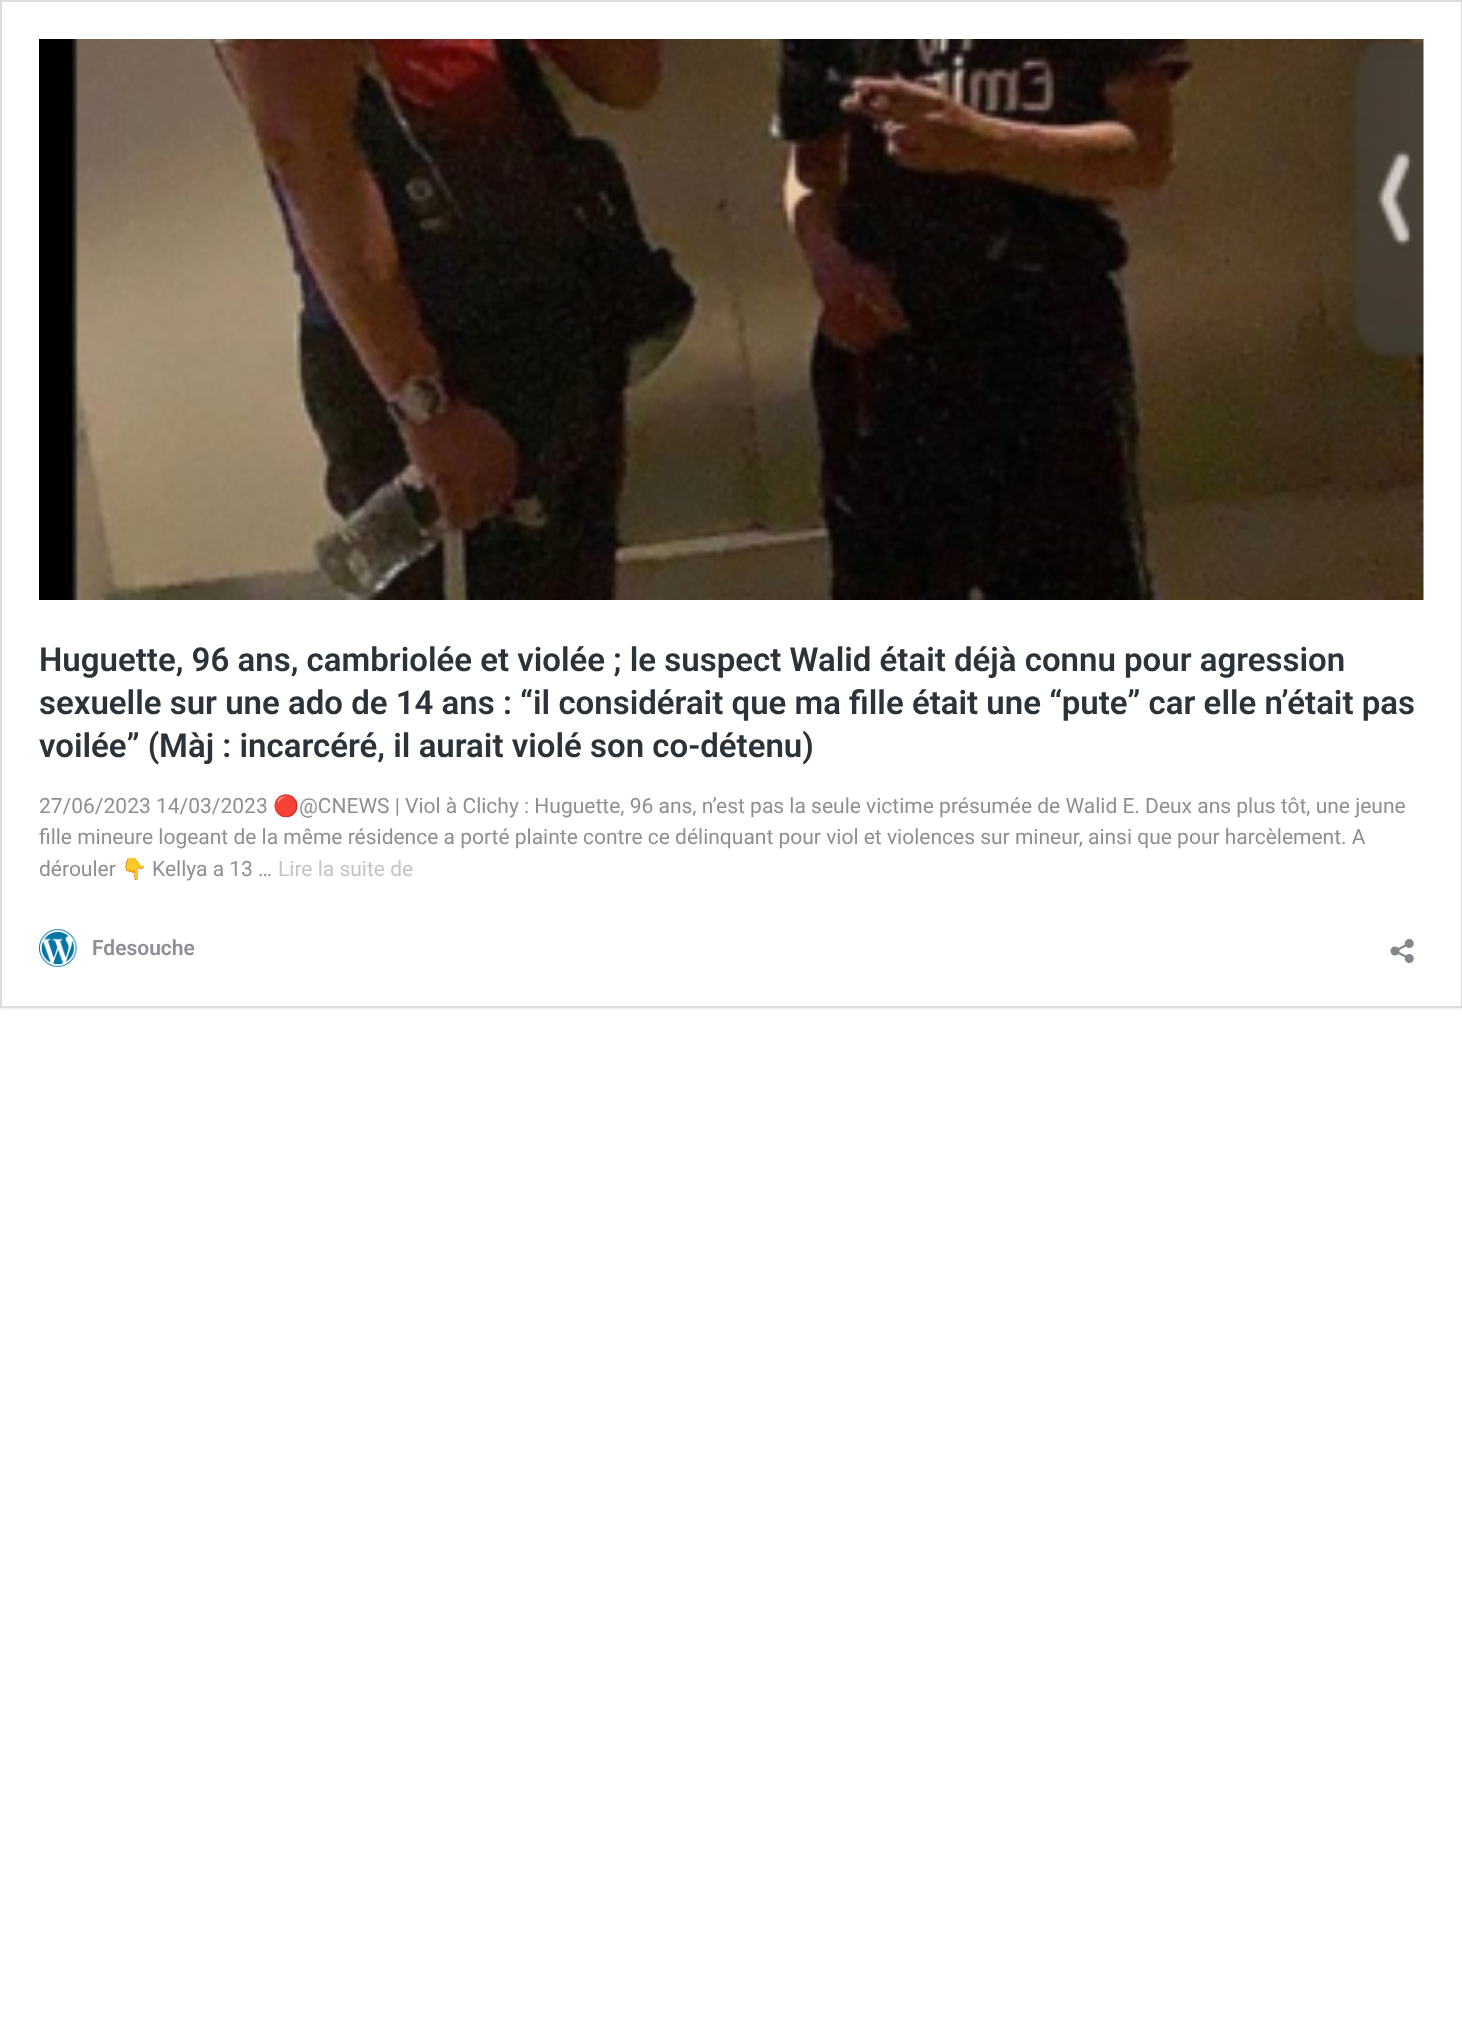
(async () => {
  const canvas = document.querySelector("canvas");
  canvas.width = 1462;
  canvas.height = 2042;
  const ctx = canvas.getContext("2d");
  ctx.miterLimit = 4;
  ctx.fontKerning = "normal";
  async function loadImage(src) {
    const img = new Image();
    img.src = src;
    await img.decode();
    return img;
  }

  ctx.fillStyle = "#ffffff";
  ctx.fillRect(0, 0, 1462, 2042);
  ctx.save();
  ctx.beginPath();
  ctx.rect(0, 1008, 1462, 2);
  ctx.clip();
  ctx.fillStyle = "rgba(0, 0, 0, 0.05)";
  ctx.filter = "blur(1px)";
  ctx.beginPath();
  ctx.rect(0, 2, 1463, 1008);
  ctx.fill();
  ctx.filter = "none";
  ctx.restore();
  ctx.strokeStyle = "#dcdcde";
  ctx.lineWidth = 2;
  ctx.strokeRect(1, 1, 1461, 1006);
  ctx.drawImage(await loadImage("img/1.png"), 39, 39, 1385, 561);
  ctx.drawImage(await loadImage("img/2.png"), 39, 929, 38, 38);
  ctx.drawImage(await loadImage("img/3.png"), 1390, 939, 24, 24);
  ctx.font = "600 33px Roboto";
  ctx.fillStyle = "#2c3338";
  for (const [text, x, y] of [
    ["Huguette, 96 ans, cambriolée et violée ; le suspect Walid était déjà connu pour agression", 39, 671],
    ["sexuelle sur une ado de 14 ans : “il considérait que ma fille était une “pute” car elle n’était pas", 39, 714],
    ["voilée” (Màj : incarcéré, il aurait violé son co-détenu)", 39, 757],
  ]) {
    ctx.fillText(text, x, y);
  }
  ctx.font = "21px Roboto";
  ctx.fillStyle = "#8c8f94";
  ctx.fillText("27/06/2023 14/03/2023", 39, 813);
  ctx.font = "21px Noto Color Emoji";
  ctx.fillText("🔴", 273, 813);
  ctx.font = "21px Roboto";
  for (const [text, x, y] of [
    ["@CNEWS | Viol à Clichy : Huguette, 96 ans, n’est pas la seule victime présumée de Walid E. Deux ans plus tôt, une jeune", 299, 813],
    ["fille mineure logeant de la même résidence a porté plainte contre ce délinquant pour viol et violences sur mineur, ainsi que pour harcèlement. A", 39, 844],
    ["dérouler", 39, 876],
  ]) {
    ctx.fillText(text, x, y);
  }
  ctx.font = "21px Noto Color Emoji";
  ctx.fillText("👇", 121, 876);
  ctx.font = "21px Roboto";
  ctx.fillText("Kellya a 13 …", 152, 876);
  ctx.fillStyle = "#c3c4c7";
  ctx.fillText("Lire la suite de", 278, 876);
  ctx.font = "600 21px Roboto";
  ctx.fillStyle = "#8c8f94";
  ctx.fillText("Fdesouche", 92, 955);
})();
